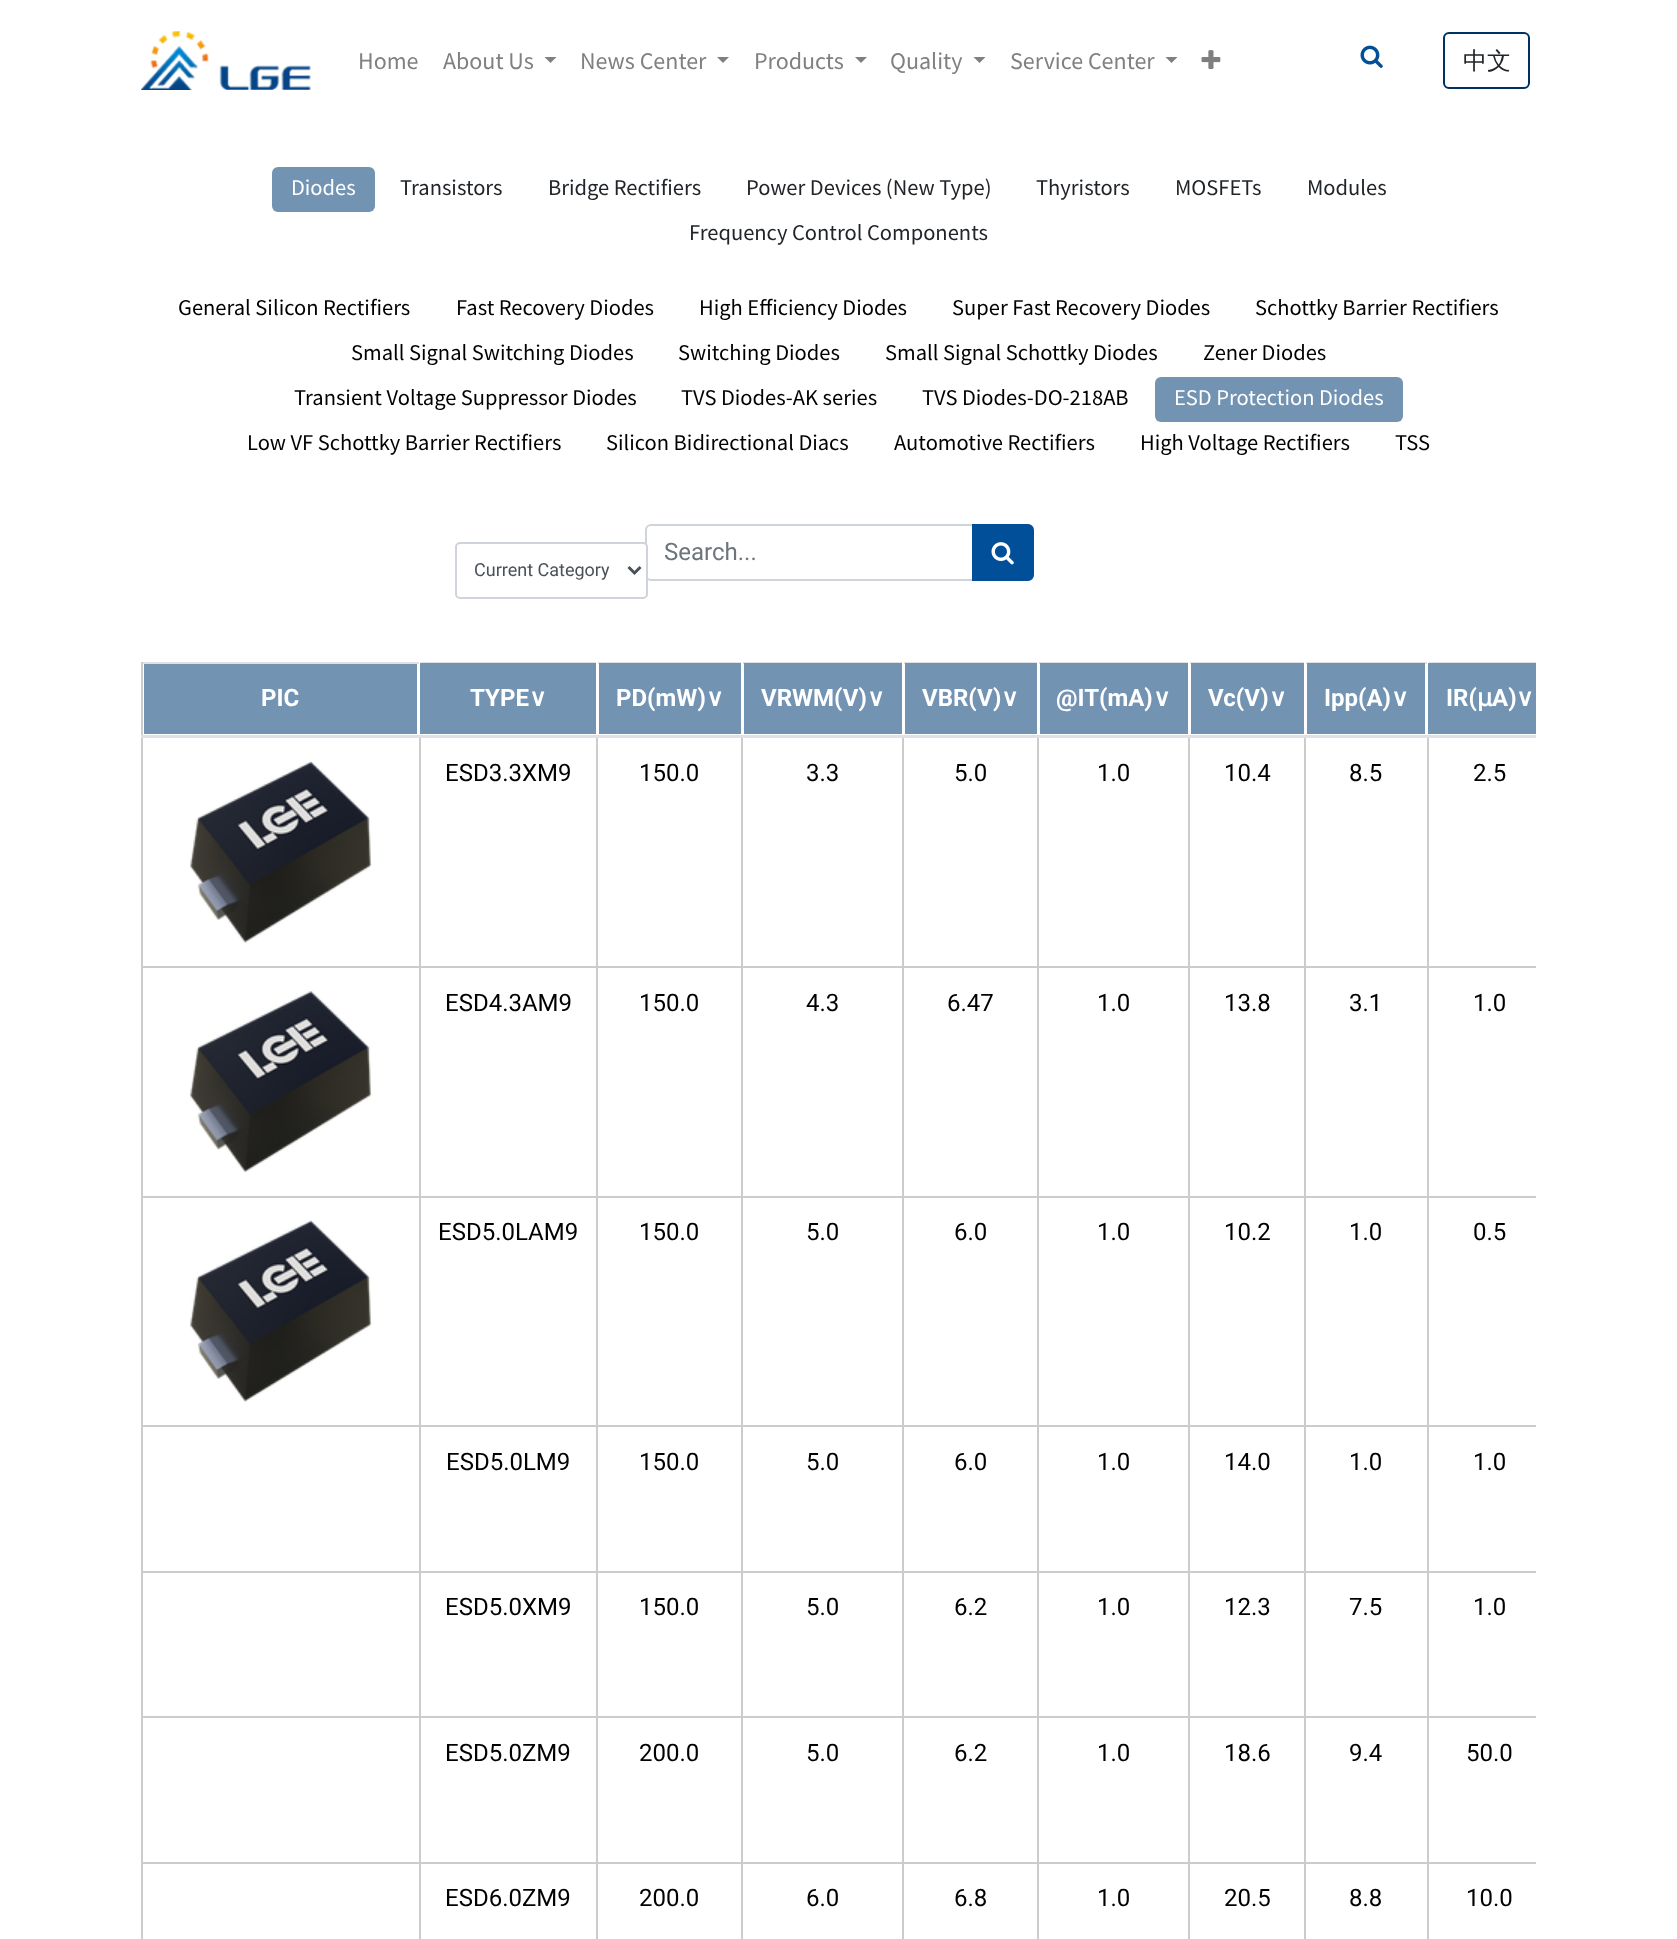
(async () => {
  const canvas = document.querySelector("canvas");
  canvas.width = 1677;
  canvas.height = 1939;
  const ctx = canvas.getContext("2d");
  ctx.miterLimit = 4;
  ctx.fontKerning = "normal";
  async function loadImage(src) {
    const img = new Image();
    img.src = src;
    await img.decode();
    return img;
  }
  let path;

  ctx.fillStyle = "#ffffff";
  ctx.fillRect(0, 0, 1677, 1939);
  ctx.drawImage(await loadImage("img/1.png"), 141, 31, 170, 59);
  ctx.fillStyle = "#808080";
  path = new Path2D("M544.5 57H556.5L550.5 63Z");
  ctx.fill(path);
  path = new Path2D("M717 57H729L723 63Z");
  ctx.fill(path);
  path = new Path2D("M855 57H867L861 63Z");
  ctx.fill(path);
  path = new Path2D("M973.5 57H985.5L979.5 63Z");
  ctx.fill(path);
  path = new Path2D("M1165.5 57H1177.5L1171.5 63Z");
  ctx.fill(path);
  ctx.drawImage(await loadImage("img/2.png"), 1201, 50, 20, 19);
  ctx.drawImage(await loadImage("img/3.png"), 1360, 45, 23, 23);
  ctx.beginPath();
  ctx.roundRect(1444, 33, 85, 55, 5);
  ctx.strokeStyle = "#003163";
  ctx.lineWidth = 2;
  ctx.stroke();
  ctx.fillStyle = "#7393b3";
  ctx.beginPath();
  ctx.roundRect(272, 167, 103, 45, 6);
  ctx.fill();
  ctx.beginPath();
  ctx.roundRect(1155, 377, 248, 45, 6);
  ctx.fill();
  ctx.beginPath();
  ctx.roundRect(646, 525, 327, 55, [5, 0, 0, 5]);
  ctx.strokeStyle = "#ced4da";
  ctx.stroke();
  ctx.fillStyle = "#014f98";
  ctx.beginPath();
  ctx.roundRect(973, 525, 60, 55, [0, 5, 5, 0]);
  ctx.fill();
  ctx.strokeStyle = "#014f98";
  ctx.stroke();
  ctx.drawImage(await loadImage("img/4.png"), 991, 542, 23, 23);
  ctx.fillStyle = "#ffffff";
  ctx.beginPath();
  ctx.roundRect(456, 543, 191, 55, 4);
  ctx.fill();
  ctx.strokeStyle = "#ced4da";
  ctx.stroke();
  path = new Path2D("M628.5 567L634.5 573L640.5 567");
  ctx.strokeStyle = "#495057";
  ctx.lineWidth = 3;
  ctx.stroke(path);
  for (const [x, y, w, h, color] of [
    [144, 664, 273, 70, "#7393b3"],
    [1427, 662, 109, 1, "#dee2e6"],
    [596, 662, 832, 2, "#dee2e6"],
    [419, 662, 178, 1, "#dee2e6"],
    [141, 662, 279, 2, "#dee2e6"],
    [1427, 1862, 2, 77, "#cccccc"],
    [1427, 1862, 109, 2, "#cccccc"],
    [1427, 1716, 2, 147, "#cccccc"],
    [1427, 1716, 109, 2, "#cccccc"],
    [1427, 1571, 2, 147, "#cccccc"],
    [1427, 1571, 109, 2, "#cccccc"],
    [1427, 1425, 2, 147, "#cccccc"],
    [1427, 1425, 109, 2, "#cccccc"],
    [1427, 1196, 2, 231, "#cccccc"],
    [1427, 1196, 109, 2, "#cccccc"],
    [1427, 966, 2, 231, "#cccccc"],
    [1427, 966, 109, 2, "#cccccc"],
    [1427, 735, 2, 233, "#cccccc"],
    [1304, 1862, 2, 77, "#cccccc"],
    [1304, 1862, 124, 2, "#cccccc"],
    [1304, 1716, 2, 147, "#cccccc"],
    [1304, 1716, 124, 2, "#cccccc"],
    [1304, 1571, 2, 147, "#cccccc"],
    [1304, 1571, 124, 2, "#cccccc"],
    [1304, 1425, 2, 147, "#cccccc"],
    [1304, 1425, 124, 2, "#cccccc"],
    [1304, 1196, 2, 231, "#cccccc"],
    [1304, 1196, 124, 2, "#cccccc"],
    [1304, 966, 2, 231, "#cccccc"],
    [1304, 966, 124, 2, "#cccccc"],
    [1304, 735, 2, 233, "#cccccc"],
    [1188, 1862, 2, 77, "#cccccc"],
    [1188, 1862, 117, 2, "#cccccc"],
    [1188, 1716, 2, 147, "#cccccc"],
    [1188, 1716, 117, 2, "#cccccc"],
    [1188, 1571, 2, 147, "#cccccc"],
    [1188, 1571, 117, 2, "#cccccc"],
    [1188, 1425, 2, 147, "#cccccc"],
    [1188, 1425, 117, 2, "#cccccc"],
    [1188, 1196, 2, 231, "#cccccc"],
    [1188, 1196, 117, 2, "#cccccc"],
    [1188, 966, 2, 231, "#cccccc"],
    [1188, 966, 117, 2, "#cccccc"],
    [1188, 735, 2, 233, "#cccccc"],
    [1037, 1862, 2, 77, "#cccccc"],
    [1037, 1862, 153, 2, "#cccccc"],
    [1037, 1716, 2, 147, "#cccccc"],
    [1037, 1716, 153, 2, "#cccccc"],
    [1037, 1571, 2, 147, "#cccccc"],
    [1037, 1571, 153, 2, "#cccccc"],
    [1037, 1425, 2, 147, "#cccccc"],
    [1037, 1425, 153, 2, "#cccccc"],
    [1037, 1196, 2, 231, "#cccccc"],
    [1037, 1196, 153, 2, "#cccccc"],
    [1037, 966, 2, 231, "#cccccc"],
    [1037, 966, 153, 2, "#cccccc"],
    [1037, 735, 2, 233, "#cccccc"],
    [902, 1862, 2, 77, "#cccccc"],
    [902, 1862, 136, 2, "#cccccc"],
    [902, 1716, 2, 147, "#cccccc"],
    [902, 1716, 136, 2, "#cccccc"],
    [902, 1571, 2, 147, "#cccccc"],
    [902, 1571, 136, 2, "#cccccc"],
    [902, 1425, 2, 147, "#cccccc"],
    [902, 1425, 136, 2, "#cccccc"],
    [902, 1196, 2, 231, "#cccccc"],
    [902, 1196, 136, 2, "#cccccc"],
    [902, 966, 2, 231, "#cccccc"],
    [902, 966, 136, 2, "#cccccc"],
    [902, 735, 2, 233, "#cccccc"],
    [741, 1862, 2, 77, "#cccccc"],
    [741, 1862, 162, 2, "#cccccc"],
    [741, 1716, 2, 147, "#cccccc"],
    [741, 1716, 162, 2, "#cccccc"],
    [741, 1571, 2, 147, "#cccccc"],
    [741, 1571, 162, 2, "#cccccc"],
    [741, 1425, 2, 147, "#cccccc"],
    [741, 1425, 162, 2, "#cccccc"],
    [741, 1196, 2, 231, "#cccccc"],
    [741, 1196, 162, 2, "#cccccc"],
    [741, 966, 2, 231, "#cccccc"],
    [741, 966, 162, 2, "#cccccc"],
    [741, 735, 2, 233, "#cccccc"],
    [596, 1862, 2, 77, "#cccccc"],
    [596, 1862, 147, 2, "#cccccc"],
    [596, 1716, 2, 147, "#cccccc"],
    [596, 1716, 147, 2, "#cccccc"],
    [596, 1571, 2, 147, "#cccccc"],
    [596, 1571, 147, 2, "#cccccc"],
    [596, 1425, 2, 147, "#cccccc"],
    [596, 1425, 147, 2, "#cccccc"],
    [596, 1196, 2, 231, "#cccccc"],
    [596, 1196, 147, 2, "#cccccc"],
    [596, 966, 2, 231, "#cccccc"],
    [596, 966, 147, 2, "#cccccc"],
    [596, 735, 2, 233, "#cccccc"],
    [419, 1862, 2, 77, "#cccccc"],
    [419, 1862, 178, 2, "#cccccc"],
    [419, 1716, 2, 147, "#cccccc"],
    [419, 1716, 178, 2, "#cccccc"],
    [419, 1571, 2, 147, "#cccccc"],
    [419, 1571, 178, 2, "#cccccc"],
    [419, 1425, 2, 147, "#cccccc"],
    [419, 1425, 178, 2, "#cccccc"],
    [419, 1196, 2, 231, "#cccccc"],
    [419, 1196, 178, 2, "#cccccc"],
    [419, 966, 2, 231, "#cccccc"],
    [419, 966, 178, 2, "#cccccc"],
    [419, 735, 2, 233, "#cccccc"],
    [419, 662, 2, 75, "#ffffff"],
    [141, 1862, 2, 77, "#cccccc"],
    [141, 1862, 279, 2, "#cccccc"],
    [141, 1716, 2, 147, "#cccccc"],
    [141, 1716, 279, 2, "#cccccc"],
    [141, 1571, 2, 147, "#cccccc"],
    [141, 1571, 279, 2, "#cccccc"],
    [141, 1425, 2, 147, "#cccccc"],
    [141, 1425, 279, 2, "#cccccc"],
    [141, 1196, 2, 231, "#cccccc"],
    [141, 1196, 279, 2, "#cccccc"],
    [141, 966, 2, 231, "#cccccc"],
    [141, 966, 279, 2, "#cccccc"],
    [141, 735, 2, 233, "#cccccc"],
    [141, 662, 2, 75, "#cccccc"],
    [596, 662, 2, 75, "#ffffff"],
    [420, 663, 176, 71, "#7393b3"],
    [741, 662, 2, 75, "#ffffff"],
    [599, 663, 142, 71, "#7393b3"],
    [902, 662, 2, 75, "#ffffff"],
    [744, 663, 158, 71, "#7393b3"],
    [1037, 662, 2, 75, "#ffffff"],
    [905, 663, 132, 71, "#7393b3"],
    [1188, 662, 2, 75, "#ffffff"],
    [1040, 663, 148, 71, "#7393b3"],
    [1304, 662, 2, 75, "#ffffff"],
    [1191, 663, 113, 71, "#7393b3"],
    [1427, 662, 2, 75, "#ffffff"],
    [1307, 663, 118, 71, "#7393b3"],
    [141, 735, 1395, 3, "#dee2e6"],
    [1428, 663, 108, 71, "#7393b3"],
  ]) {
    ctx.fillStyle = color;
    ctx.fillRect(x, y, w, h);
  }
  ctx.drawImage(await loadImage("img/5.png"), 190, 761, 182, 182);
  ctx.drawImage(await loadImage("img/6.png"), 190, 991, 182, 181);
  ctx.drawImage(await loadImage("img/5.png"), 190, 1220, 182, 182);
  ctx.font = "24px Source Sans Pro";
  ctx.fillStyle = "#808080";
  for (const [text, x, y] of [
    ["Home", 358, 69],
    ["About Us", 443, 69],
    ["News Center", 580, 69],
    ["Products", 754, 69],
    ["Quality", 890, 69],
    ["Service Center", 1010, 69],
  ]) {
    ctx.fillText(text, x, y);
  }
  ctx.font = "500 24px WenQuanYi Zen Hei";
  ctx.fillStyle = "#212529";
  ctx.fillText("中文", 1463, 69);
  ctx.font = "22.5px Source Sans Pro";
  ctx.fillStyle = "#ffffff";
  ctx.fillText("Diodes", 291, 195);
  ctx.fillStyle = "#212529";
  for (const [text, x, y] of [
    ["Transistors", 400, 195],
    ["Bridge Rectifiers", 548, 195],
    ["Power Devices (New Type)", 746, 195],
    ["Thyristors", 1036, 195],
    ["MOSFETs", 1175, 195],
    ["Modules", 1307, 195],
    ["Frequency Control Components", 689, 240],
  ]) {
    ctx.fillText(text, x, y);
  }
  ctx.fillStyle = "#000000";
  for (const [text, x, y] of [
    ["General Silicon Rectifiers", 178, 315],
    ["Fast Recovery Diodes", 456, 315],
    ["High Efficiency Diodes", 699, 315],
    ["Super Fast Recovery Diodes", 952, 315],
    ["Schottky Barrier Rectifiers", 1255, 315],
    ["Small Signal Switching Diodes", 351, 360],
    ["Switching Diodes", 678, 360],
    ["Small Signal Schottky Diodes", 885, 360],
    ["Zener Diodes", 1203, 360],
    ["Transient Voltage Suppressor Diodes", 294, 405],
    ["TVS Diodes-AK series", 681, 405],
    ["TVS Diodes-DO-218AB", 922, 405],
  ]) {
    ctx.fillText(text, x, y);
  }
  ctx.fillStyle = "#ffffff";
  ctx.fillText("ESD Protection Diodes", 1174, 405);
  ctx.fillStyle = "#000000";
  for (const [text, x, y] of [
    ["Low VF Schottky Barrier Rectifiers", 247, 450],
    ["Silicon Bidirectional Diacs", 606, 450],
    ["Automotive Rectifiers", 894, 450],
    ["High Voltage Rectifiers", 1140, 450],
    ["TSS", 1395, 450],
  ]) {
    ctx.fillText(text, x, y);
  }
  ctx.font = "24px Roboto";
  ctx.fillStyle = "#6c757d";
  ctx.fillText("Search...", 664, 560);
  ctx.font = "18px Roboto";
  ctx.fillStyle = "#495057";
  ctx.fillText("Current Category", 474, 576);
  ctx.font = "bold 24px Roboto";
  ctx.fillStyle = "#ffffff";
  ctx.fillText("PIC", 261, 706);
  ctx.fillText("TYPE", 470, 706);
  ctx.font = "bold 24px DejaVu Sans";
  ctx.fillText("∨", 529, 706);
  ctx.font = "bold 24px Roboto";
  ctx.fillText("PD(mW)", 616, 706);
  ctx.font = "bold 24px DejaVu Sans";
  ctx.fillText("∨", 706, 706);
  ctx.font = "bold 24px Roboto";
  ctx.fillText("VRWM(V)", 761, 706);
  ctx.font = "bold 24px DejaVu Sans";
  ctx.fillText("∨", 867, 706);
  ctx.font = "bold 24px Roboto";
  ctx.fillText("VBR(V)", 922, 706);
  ctx.font = "bold 24px DejaVu Sans";
  ctx.fillText("∨", 1001, 706);
  ctx.font = "bold 24px Roboto";
  ctx.fillText("@IT(mA)", 1056, 706);
  ctx.font = "bold 24px DejaVu Sans";
  ctx.fillText("∨", 1153, 706);
  ctx.font = "bold 24px Roboto";
  ctx.fillText("Vc(V)", 1208, 706);
  ctx.font = "bold 24px DejaVu Sans";
  ctx.fillText("∨", 1269, 706);
  ctx.font = "bold 24px Roboto";
  ctx.fillText("Ipp(A)", 1324, 706);
  ctx.font = "bold 24px DejaVu Sans";
  ctx.fillText("∨", 1391, 706);
  ctx.font = "bold 24px Roboto";
  ctx.fillText("IR(", 1446, 706);
  ctx.font = "bold 24px DejaVu Sans";
  ctx.fillText("μ", 1477, 706);
  ctx.font = "bold 24px Roboto";
  ctx.fillText("A)", 1492, 706);
  ctx.font = "bold 24px DejaVu Sans";
  ctx.fillText("∨", 1516, 706);
  ctx.font = "24px Roboto";
  ctx.fillStyle = "#000000";
  for (const [text, x, y] of [
    ["ESD3.3XM9", 445, 781],
    ["150.0", 639, 781],
    ["3.3", 806, 781],
    ["5.0", 954, 781],
    ["1.0", 1097, 781],
    ["10.4", 1224, 781],
    ["8.5", 1349, 781],
    ["2.5", 1473, 781],
    ["ESD4.3AM9", 445, 1011],
    ["150.0", 639, 1011],
    ["4.3", 806, 1011],
    ["6.47", 947, 1011],
    ["1.0", 1097, 1011],
    ["13.8", 1224, 1011],
    ["3.1", 1349, 1011],
    ["1.0", 1473, 1011],
    ["ESD5.0LAM9", 438, 1240],
    ["150.0", 639, 1240],
    ["5.0", 806, 1240],
    ["6.0", 954, 1240],
    ["1.0", 1097, 1240],
    ["10.2", 1224, 1240],
    ["1.0", 1349, 1240],
    ["0.5", 1473, 1240],
    ["ESD5.0LM9", 446, 1470],
    ["150.0", 639, 1470],
    ["5.0", 806, 1470],
    ["6.0", 954, 1470],
    ["1.0", 1097, 1470],
    ["14.0", 1224, 1470],
    ["1.0", 1349, 1470],
    ["1.0", 1473, 1470],
    ["ESD5.0XM9", 445, 1615],
    ["150.0", 639, 1615],
    ["5.0", 806, 1615],
    ["6.2", 954, 1615],
    ["1.0", 1097, 1615],
    ["12.3", 1224, 1615],
    ["7.5", 1349, 1615],
    ["1.0", 1473, 1615],
    ["ESD5.0ZM9", 445, 1761],
    ["200.0", 639, 1761],
    ["5.0", 806, 1761],
    ["6.2", 954, 1761],
    ["1.0", 1097, 1761],
    ["18.6", 1224, 1761],
    ["9.4", 1349, 1761],
    ["50.0", 1466, 1761],
    ["ESD6.0ZM9", 445, 1906],
    ["200.0", 639, 1906],
    ["6.0", 806, 1906],
    ["6.8", 954, 1906],
    ["1.0", 1097, 1906],
    ["20.5", 1224, 1906],
    ["8.8", 1349, 1906],
    ["10.0", 1466, 1906],
  ]) {
    ctx.fillText(text, x, y);
  }
})();
